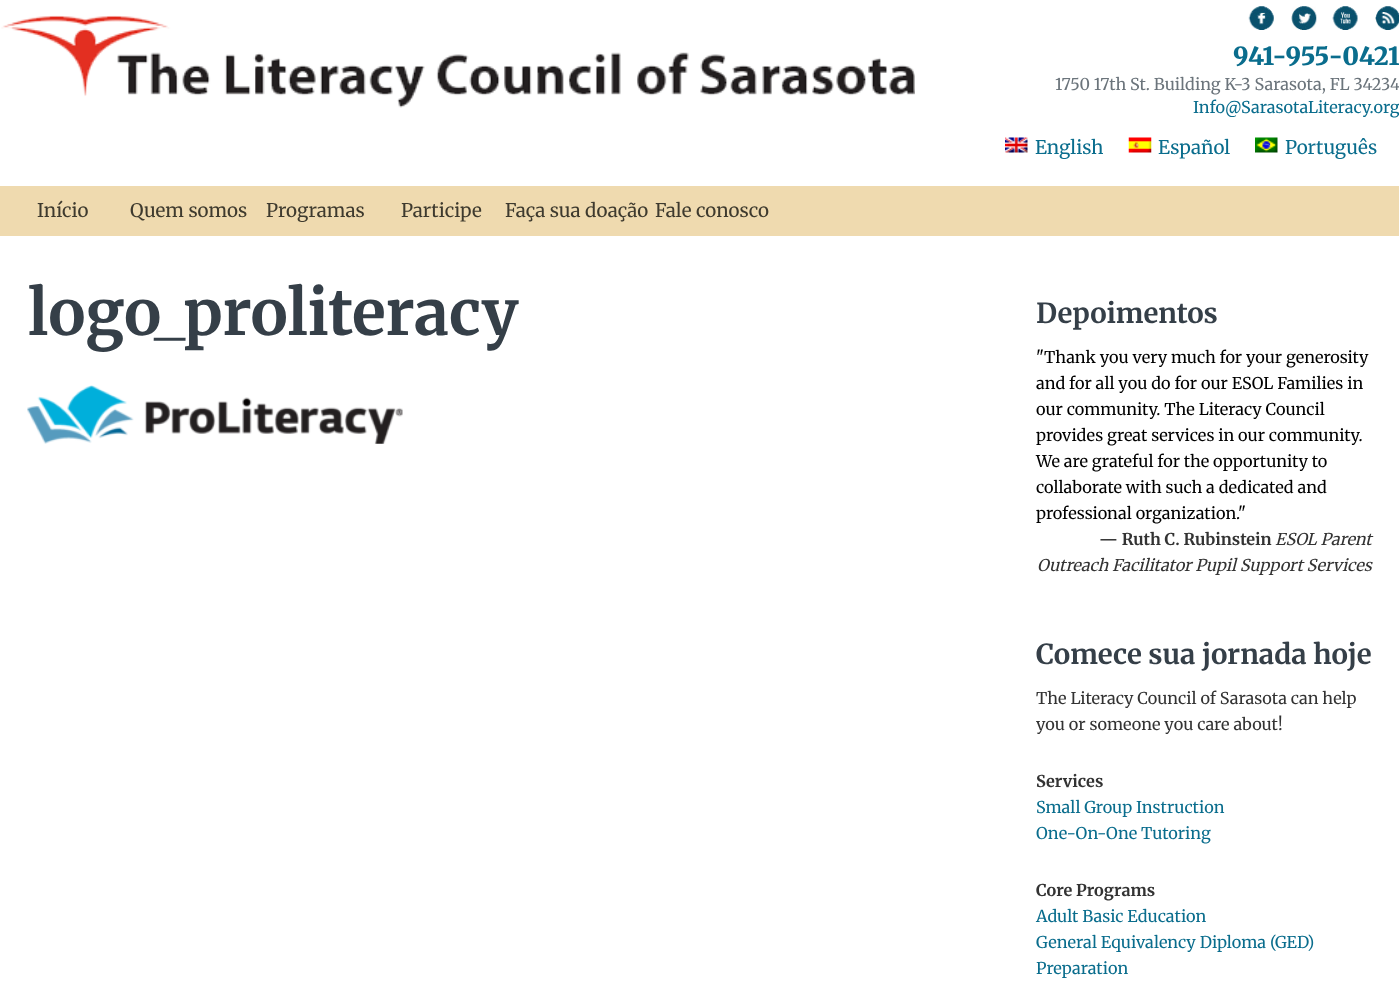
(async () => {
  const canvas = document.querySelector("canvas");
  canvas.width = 1399;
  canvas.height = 986;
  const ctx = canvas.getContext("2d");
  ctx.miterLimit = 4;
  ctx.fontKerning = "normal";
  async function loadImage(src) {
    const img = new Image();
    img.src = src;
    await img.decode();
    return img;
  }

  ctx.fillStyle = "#ffffff";
  ctx.fillRect(0, 0, 1399, 986);
  ctx.drawImage(await loadImage("img/1.png"), 1, 15, 914, 93);
  ctx.drawImage(await loadImage("img/2.png"), 1248, 6, 26, 24);
  ctx.drawImage(await loadImage("img/3.png"), 1291, 6, 26, 24);
  ctx.drawImage(await loadImage("img/4.png"), 1332, 6, 26, 24);
  ctx.drawImage(await loadImage("img/5.png"), 1375, 6, 24, 24);
  ctx.drawImage(await loadImage("img/6.png"), 1005, 137, 23, 16);
  ctx.drawImage(await loadImage("img/7.png"), 1128, 137, 24, 16);
  ctx.drawImage(await loadImage("img/8.png"), 1255, 137, 23, 16);
  ctx.fillStyle = "#efdaaf";
  ctx.fillRect(0, 186, 1399, 50);
  ctx.drawImage(await loadImage("img/9.png"), 27, 385, 376, 59);
  ctx.font = "900 25px Merriweather";
  ctx.fillStyle = "#0a6d8d";
  ctx.fillText("941-955-0421", 1233, 65);
  ctx.font = "16.25px Merriweather";
  ctx.fillStyle = "#6b747b";
  ctx.fillText("1750 17th St. Building K-3 Sarasota, FL 34234", 1055, 90);
  ctx.fillStyle = "#0a6d8d";
  ctx.fillText("Info@SarasotaLiteracy.org", 1193, 113);
  ctx.font = "18.75px Merriweather";
  for (const [text, x, y] of [
    ["English", 1035, 154],
    ["Español", 1158, 154],
    ["Português", 1285, 154],
  ]) {
    ctx.fillText(text, x, y);
  }
  ctx.fillStyle = "#3e3a2e";
  for (const [text, x, y] of [
    ["Início", 37, 217],
    ["Quem somos", 130, 217],
    ["Programas", 266, 217],
    ["Participe", 401, 217],
    ["Faça sua doação", 505, 217],
    ["Fale conosco", 655, 217],
  ]) {
    ctx.fillText(text, x, y);
  }
  ctx.font = "bold 62.5px Merriweather";
  ctx.fillStyle = "#353f48";
  ctx.fillText("logo_proliteracy", 28, 335);
  ctx.font = "bold 27.5px Merriweather";
  ctx.fillText("Depoimentos", 1036, 323);
  ctx.font = "16.25px Merriweather";
  ctx.fillStyle = "#000000";
  for (const [text, x, y] of [
    ["\"Thank you very much for your generosity", 1036, 363],
    ["and for all you do for our ESOL Families in", 1036, 389],
    ["our community. The Literacy Council", 1036, 415],
    ["provides great services in our community.", 1036, 441],
    ["We are grateful for the opportunity to", 1036, 467],
    ["collaborate with such a dedicated and", 1036, 493],
    ["professional organization.\"", 1036, 519],
  ]) {
    ctx.fillText(text, x, y);
  }
  ctx.font = "bold 16.25px Merriweather";
  ctx.fillStyle = "#333333";
  ctx.fillText("— Ruth C. Rubinstein", 1099, 545);
  ctx.font = "italic 16.25px Merriweather";
  ctx.fillText("ESOL Parent", 1275, 545);
  ctx.fillText("Outreach Facilitator Pupil Support Services", 1037, 571);
  ctx.font = "bold 27.5px Merriweather";
  ctx.fillStyle = "#353f48";
  ctx.fillText("Comece sua jornada hoje", 1036, 664);
  ctx.font = "16.25px Merriweather";
  ctx.fillStyle = "#333333";
  ctx.fillText("The Literacy Council of Sarasota can help", 1036, 704);
  ctx.fillText("you or someone you care about!", 1036, 730);
  ctx.font = "bold 16.25px Merriweather";
  ctx.fillText("Services", 1036, 787);
  ctx.font = "16.25px Merriweather";
  ctx.fillStyle = "#0a6d8d";
  ctx.fillText("Small Group Instruction", 1036, 813);
  ctx.fillText("One-On-One Tutoring", 1036, 839);
  ctx.font = "bold 16.25px Merriweather";
  ctx.fillStyle = "#333333";
  ctx.fillText("Core Programs", 1036, 896);
  ctx.font = "16.25px Merriweather";
  ctx.fillStyle = "#0a6d8d";
  for (const [text, x, y] of [
    ["Adult Basic Education", 1036, 922],
    ["General Equivalency Diploma (GED)", 1036, 948],
    ["Preparation", 1036, 974],
  ]) {
    ctx.fillText(text, x, y);
  }
})();
